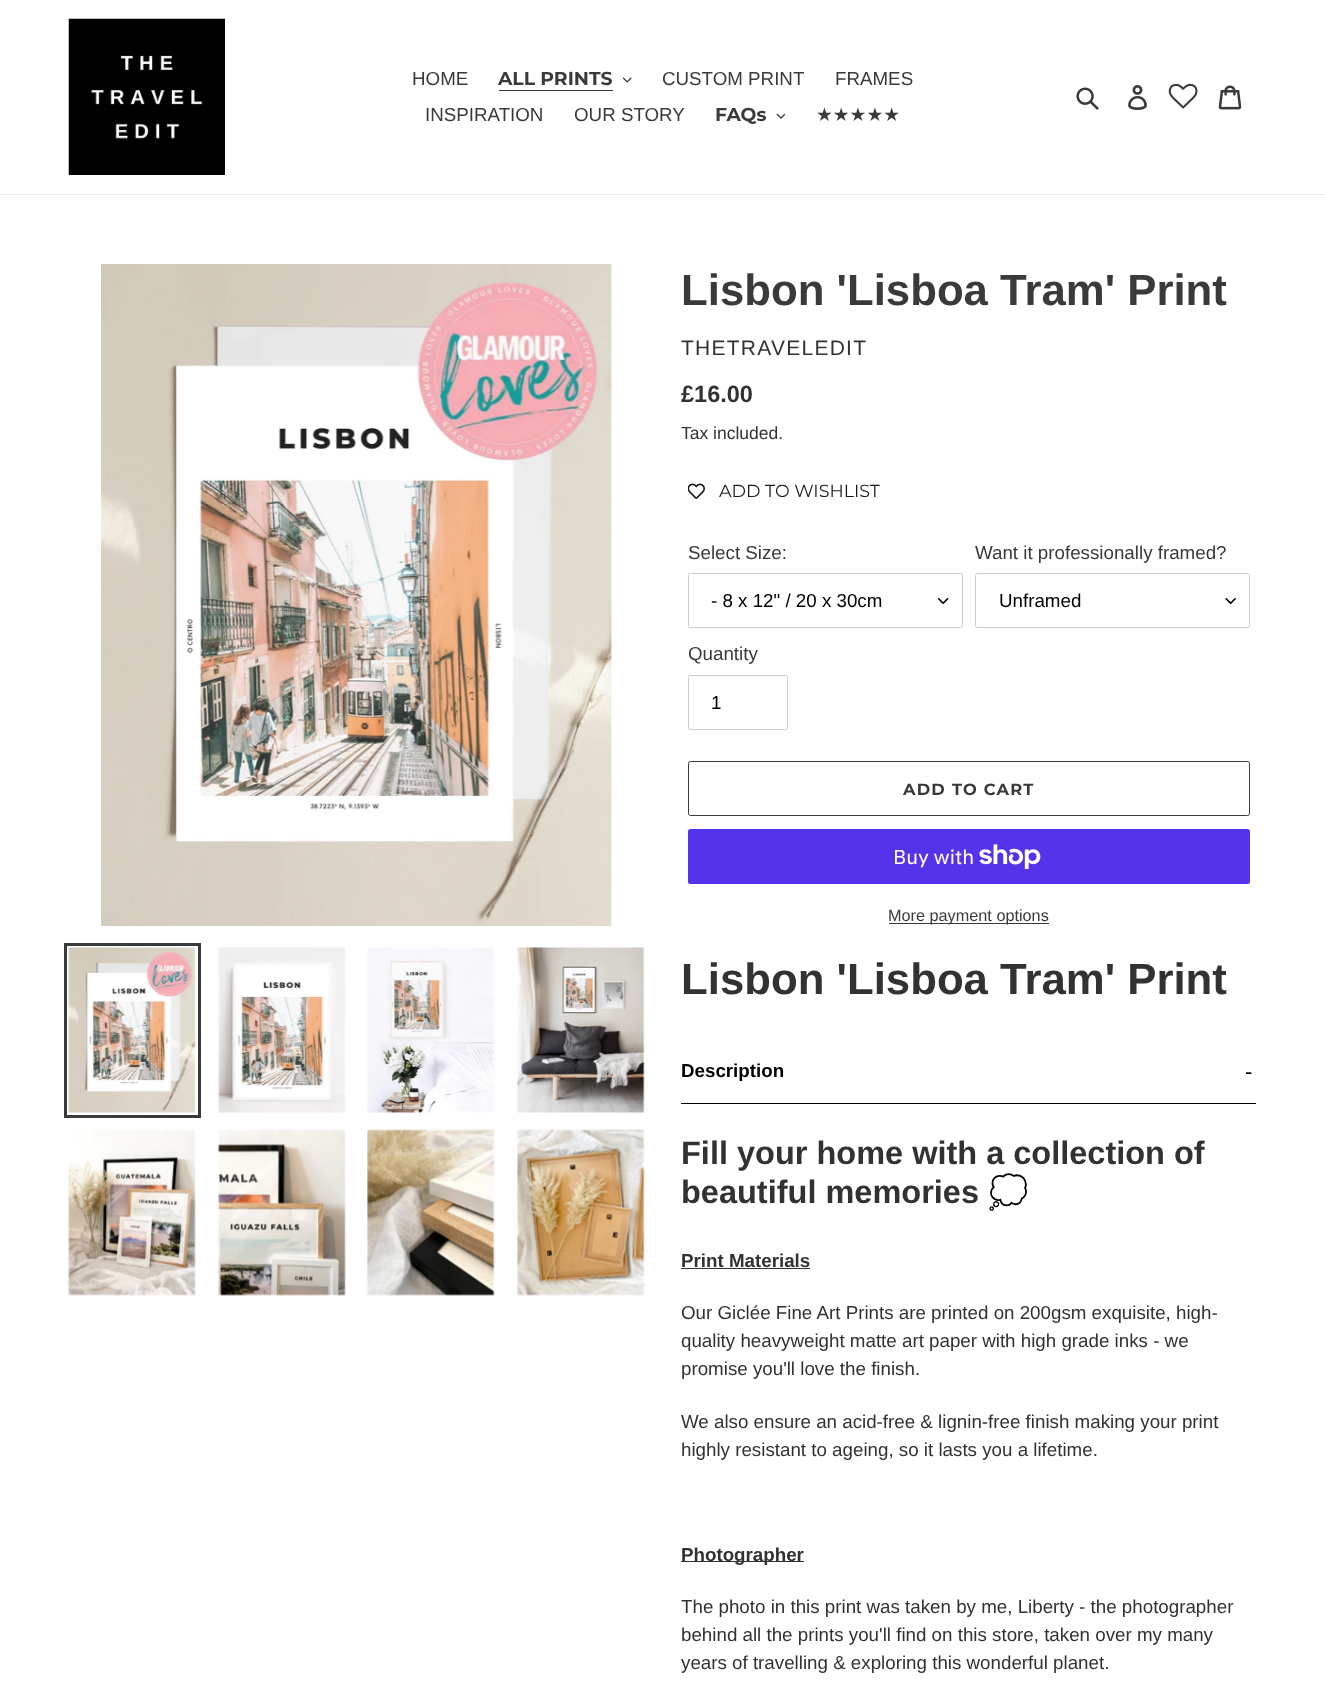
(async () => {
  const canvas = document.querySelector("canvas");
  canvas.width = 1325;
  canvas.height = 1689;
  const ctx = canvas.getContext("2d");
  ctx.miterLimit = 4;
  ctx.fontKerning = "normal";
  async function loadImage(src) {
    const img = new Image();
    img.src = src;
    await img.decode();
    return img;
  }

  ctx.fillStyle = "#ffffff";
  ctx.fillRect(0, 0, 1325, 1689);
  ctx.fillStyle = "#ebebeb";
  ctx.fillRect(0, 194, 1325, 1);
  ctx.drawImage(await loadImage("img/1.png"), 68, 18, 157, 157);
  ctx.fillStyle = "#3a3a3a";
  ctx.fillRect(499, 90, 114, 1);
  ctx.drawImage(await loadImage("img/2.png"), 623, 77, 9, 6);
  ctx.drawImage(await loadImage("img/3.png"), 776, 113, 9, 6);
  ctx.drawImage(await loadImage("img/4.png"), 1076, 87, 23, 23);
  ctx.drawImage(await loadImage("img/5.png"), 1128, 85, 19, 25);
  ctx.drawImage(await loadImage("img/6.png"), 1168, 83, 30, 26);
  ctx.drawImage(await loadImage("img/7.png"), 1218, 85, 24, 25);
  ctx.drawImage(await loadImage("img/8.png"), 101, 264, 511, 662);
  ctx.strokeStyle = "#3a3a3a";
  ctx.lineWidth = 3;
  ctx.strokeRect(65.5, 944.5, 134, 172);
  ctx.drawImage(await loadImage("img/9.png"), 68, 947, 128, 166);
  ctx.drawImage(await loadImage("img/10.png"), 218, 947, 127, 166);
  ctx.drawImage(await loadImage("img/11.png"), 367, 947, 128, 166);
  ctx.drawImage(await loadImage("img/12.png"), 517, 947, 128, 166);
  ctx.drawImage(await loadImage("img/13.png"), 68, 1129, 128, 167);
  ctx.drawImage(await loadImage("img/14.png"), 218, 1129, 128, 167);
  ctx.drawImage(await loadImage("img/15.png"), 367, 1129, 128, 167);
  ctx.drawImage(await loadImage("img/16.png"), 517, 1129, 128, 167);
  ctx.drawImage(await loadImage("img/17.png"), 688, 483, 17, 16);
  ctx.drawImage(await loadImage("img/18.png"), 938, 598, 11, 6);
  ctx.beginPath();
  ctx.roundRect(688.5, 573.5, 274, 54, 2);
  ctx.strokeStyle = "#cccccc";
  ctx.lineWidth = 1;
  ctx.stroke();
  ctx.drawImage(await loadImage("img/19.png"), 1225, 598, 11, 6);
  ctx.beginPath();
  ctx.roundRect(975.5, 573.5, 274, 54, 2);
  ctx.stroke();
  ctx.beginPath();
  ctx.roundRect(688.5, 675.5, 99, 54, 2);
  ctx.stroke();
  ctx.beginPath();
  ctx.roundRect(688.5, 761.5, 561, 54, 2);
  ctx.strokeStyle = "#3a3a3a";
  ctx.stroke();
  ctx.fillStyle = "#5433eb";
  ctx.beginPath();
  ctx.roundRect(688, 829, 562, 55, 2.5);
  ctx.fill();
  ctx.drawImage(await loadImage("img/20.png"), 979, 844, 62, 25);
  for (const [x, y, w, h, color] of [
    [889, 923, 160, 1, "#3a3a3a"],
    [681, 1103, 575, 1, "#000000"],
    [681, 1268, 129, 1, "#333232"],
    [681, 1561, 123, 1, "#333232"],
  ]) {
    ctx.fillStyle = color;
    ctx.fillRect(x, y, w, h);
  }
  ctx.font = "18.75px Liberation Sans";
  ctx.fillStyle = "#3a3a3a";
  ctx.fillText("HOME", 412, 85);
  ctx.font = "bold 18.75px Montserrat";
  ctx.fillText("ALL PRINTS", 498, 85);
  ctx.font = "18.75px Liberation Sans";
  for (const [text, x, y] of [
    ["CUSTOM PRINT", 662, 85],
    ["FRAMES", 835, 85],
    ["INSPIRATION", 425, 121],
    ["OUR STORY", 574, 121],
  ]) {
    ctx.fillText(text, x, y);
  }
  ctx.font = "bold 18.75px Montserrat";
  ctx.fillText("FAQs", 715, 121);
  ctx.font = "18.75px DejaVu Sans";
  ctx.fillText("★★★★★", 816, 121);
  ctx.font = "bold 43.75px Liberation Sans";
  ctx.fillText("Lisbon 'Lisboa Tram' Print", 681, 305);
  ctx.letterSpacing = "1.25px";
  ctx.font = "21px Liberation Sans";
  ctx.fillStyle = "#333232";
  ctx.fillText("THETRAVELEDIT", 681, 355);
  ctx.letterSpacing = "0px";
  ctx.font = "bold 23.5px Liberation Sans";
  ctx.fillText("£16.00", 681, 402);
  ctx.font = "17.5px Liberation Sans";
  ctx.fillText("Tax included.", 681, 439);
  ctx.font = "17.5px Montserrat";
  ctx.fillStyle = "#1a1a1a";
  ctx.fillText("ADD TO WISHLIST", 719, 497);
  ctx.font = "18.75px Liberation Sans";
  ctx.fillStyle = "#3a3a3a";
  ctx.fillText("Select Size:", 688, 559);
  ctx.fillStyle = "#000000";
  ctx.fillText("- 8 x 12\" / 20 x 30cm", 711, 607);
  ctx.fillStyle = "#3a3a3a";
  ctx.fillText("Want it professionally framed?", 975, 559);
  ctx.fillStyle = "#000000";
  ctx.fillText("Unframed", 999, 607);
  ctx.fillStyle = "#3a3a3a";
  ctx.fillText("Quantity", 688, 660);
  ctx.fillStyle = "#000000";
  ctx.fillText("1", 711, 709);
  ctx.letterSpacing = "1.25px";
  ctx.font = "bold 16.25px Montserrat";
  ctx.fillStyle = "#3a3a3a";
  ctx.fillText("ADD TO CART", 903, 795);
  ctx.letterSpacing = "0px";
  ctx.font = "20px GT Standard";
  ctx.fillStyle = "#ffffff";
  ctx.fillText("Buy with", 893, 864);
  ctx.font = "16.25px Liberation Sans";
  ctx.fillStyle = "#3a3a3a";
  ctx.fillText("More payment options", 888, 921);
  ctx.font = "bold 43.75px Liberation Sans";
  ctx.fillStyle = "#333232";
  ctx.fillText("Lisbon 'Lisboa Tram' Print", 681, 994);
  ctx.font = "bold 18.75px Liberation Sans";
  ctx.fillStyle = "#000000";
  ctx.fillText("Description", 681, 1077);
  ctx.font = "22px Liberation Sans";
  ctx.fillText("-", 1245, 1079);
  ctx.font = "bold 32.5px Liberation Sans";
  ctx.fillStyle = "#333232";
  ctx.fillText("Fill your home with a collection of", 681, 1164);
  ctx.fillText("beautiful memories", 681, 1203);
  ctx.font = "bold 32.5px Noto Color Emoji";
  ctx.fillText("💭", 988, 1203);
  ctx.font = "bold 18.75px Liberation Sans";
  ctx.fillText("Print Materials", 681, 1267);
  ctx.font = "18.75px Liberation Sans";
  for (const [text, x, y] of [
    ["Our Giclée Fine Art Prints are printed on 200gsm exquisite, high-", 681, 1319],
    ["quality heavyweight matte art paper with high grade inks - we", 681, 1347],
    ["promise you'll love the finish.", 681, 1375],
    ["We also ensure an acid-free & lignin-free finish making your print", 681, 1428],
    ["highly resistant to ageing, so it lasts you a lifetime.", 681, 1456],
  ]) {
    ctx.fillText(text, x, y);
  }
  ctx.font = "bold 18.75px Liberation Sans";
  ctx.fillText("Photographer", 681, 1561);
  ctx.font = "18.75px Liberation Sans";
  for (const [text, x, y] of [
    ["The photo in this print was taken by me, Liberty - the photographer", 681, 1613],
    ["behind all the prints you'll find on this store, taken over my many", 681, 1641],
    ["years of travelling & exploring this wonderful planet.", 681, 1669],
  ]) {
    ctx.fillText(text, x, y);
  }
})();
